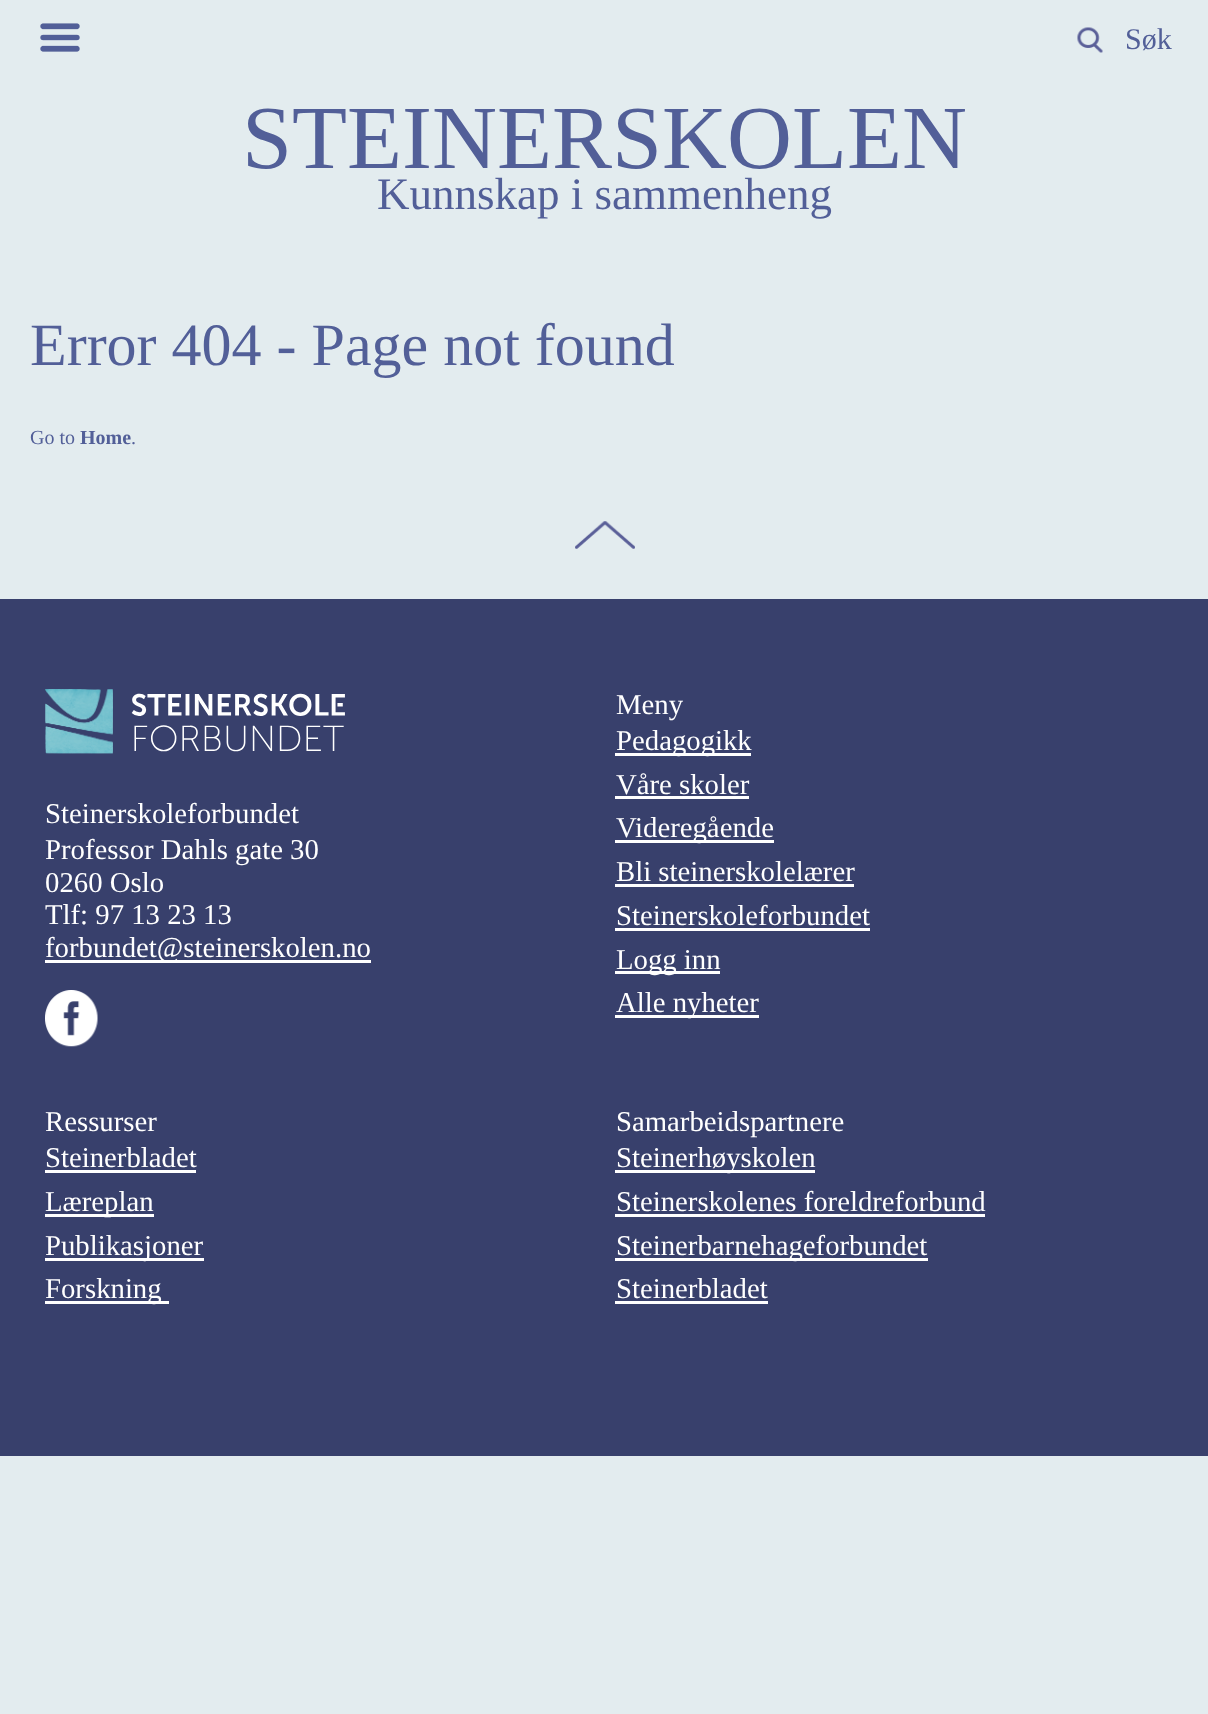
(async () => {
  const canvas = document.querySelector("canvas");
  canvas.width = 1208;
  canvas.height = 1714;
  const ctx = canvas.getContext("2d");
  ctx.miterLimit = 4;
  ctx.fontKerning = "normal";
  async function loadImage(src) {
    const img = new Image();
    img.src = src;
    await img.decode();
    return img;
  }

  ctx.fillStyle = "#e3ecef";
  ctx.fillRect(0, 0, 1208, 1714);
  ctx.drawImage(await loadImage("img/1.png"), 40, 23, 40, 29);
  ctx.drawImage(await loadImage("img/2.png"), 1077, 27, 26, 26);
  ctx.drawImage(await loadImage("img/3.png"), 575, 521, 60, 28);
  ctx.fillStyle = "#38406c";
  ctx.fillRect(0, 599, 1208, 857);
  ctx.drawImage(await loadImage("img/4.png"), 45, 689, 300, 65);
  ctx.fillStyle = "#ffffff";
  ctx.fillRect(45, 960, 326, 3);
  ctx.drawImage(await loadImage("img/5.png"), 45, 990, 53, 57);
  for (const [x, y, w, h, color] of [
    [615, 753, 136, 3, "#ffffff"],
    [615, 796, 134, 3, "#ffffff"],
    [615, 840, 159, 3, "#ffffff"],
    [615, 884, 239, 3, "#ffffff"],
    [615, 928, 255, 3, "#ffffff"],
    [615, 971, 105, 3, "#ffffff"],
    [615, 1015, 144, 3, "#ffffff"],
    [45, 1170, 151, 3, "#ffffff"],
    [45, 1214, 109, 3, "#ffffff"],
    [45, 1258, 159, 3, "#ffffff"],
    [45, 1301, 124, 3, "#ffffff"],
    [615, 1170, 200, 3, "#ffffff"],
    [615, 1214, 370, 3, "#ffffff"],
    [615, 1258, 313, 3, "#ffffff"],
    [615, 1301, 153, 3, "#ffffff"],
  ]) {
    ctx.fillStyle = color;
    ctx.fillRect(x, y, w, h);
  }
  ctx.font = "30px Liberation Serif";
  ctx.fillStyle = "#525f98";
  ctx.fillText("Søk", 1125, 49);
  ctx.font = "90px Liberation Serif";
  ctx.fillText("STEINERSKOLEN", 242, 168);
  ctx.font = "45px Liberation Serif";
  ctx.fillText("Kunnskap i sammenheng", 377, 209);
  ctx.font = "60px Liberation Serif";
  ctx.fillText("Error 404 - Page not found", 30, 365);
  ctx.font = "20px Liberation Serif";
  ctx.fillText("Go to", 30, 444);
  ctx.font = "bold 20px Liberation Serif";
  ctx.fillText("Home", 80, 444);
  ctx.font = "20px Liberation Serif";
  ctx.fillText(".", 131, 444);
  ctx.font = "28.75px Liberation Serif";
  ctx.fillStyle = "#ffffff";
  for (const [text, x, y] of [
    ["Steinerskoleforbundet", 45, 823],
    ["Professor Dahls gate 30", 45, 859],
    ["0260 Oslo", 45, 892],
    ["Tlf: 97 13 23 13", 45, 924],
    ["forbundet@steinerskolen.no", 45, 957],
    ["Meny", 616, 714],
    ["Pedagogikk", 616, 750],
    ["Våre skoler", 616, 794],
    ["Videregående", 616, 837],
    ["Bli steinerskolelærer", 616, 881],
    ["Steinerskoleforbundet", 616, 925],
    ["Logg inn", 616, 969],
    ["Alle nyheter", 616, 1012],
    ["Ressurser", 45, 1131],
    ["Steinerbladet", 45, 1167],
    ["Læreplan", 45, 1211],
    ["Publikasjoner", 45, 1255],
    ["Forskning", 45, 1298],
    ["Samarbeidspartnere", 616, 1131],
    ["Steinerhøyskolen", 616, 1167],
    ["Steinerskolenes foreldreforbund", 616, 1211],
    ["Steinerbarnehageforbundet", 616, 1255],
    ["Steinerbladet", 616, 1298],
  ]) {
    ctx.fillText(text, x, y);
  }
})();
